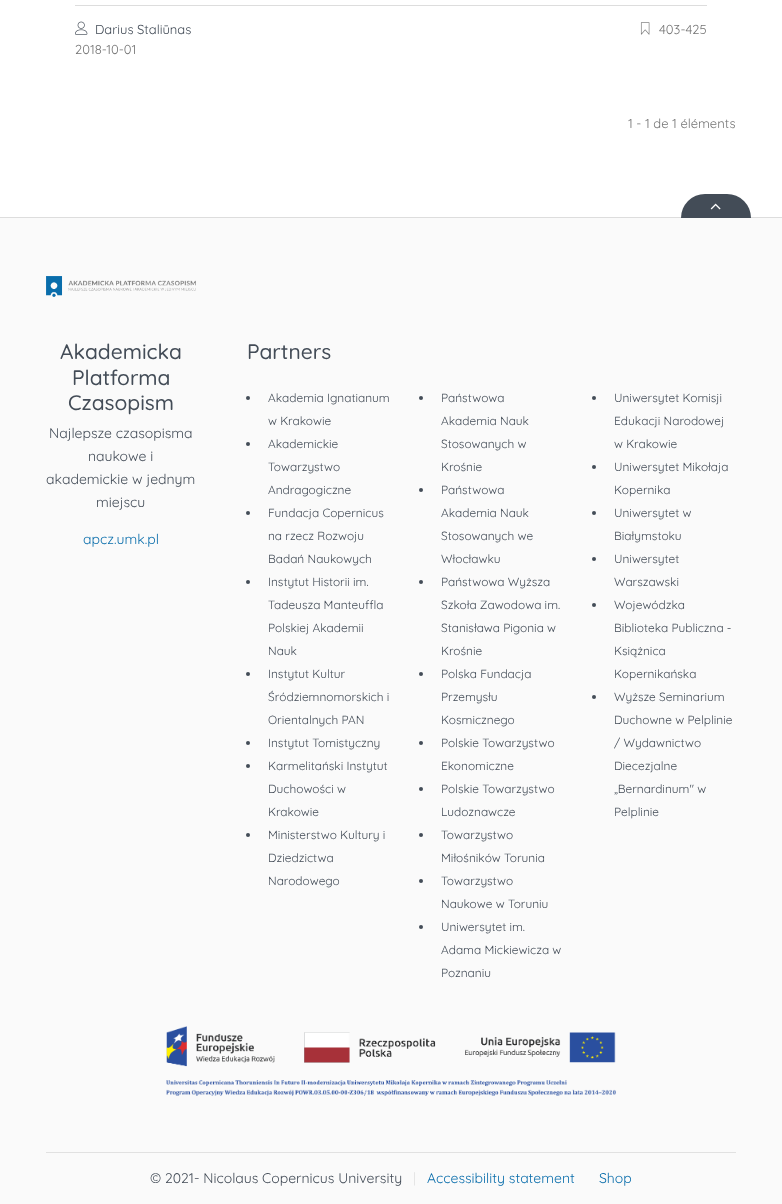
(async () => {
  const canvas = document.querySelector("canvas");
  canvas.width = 782;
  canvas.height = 1204;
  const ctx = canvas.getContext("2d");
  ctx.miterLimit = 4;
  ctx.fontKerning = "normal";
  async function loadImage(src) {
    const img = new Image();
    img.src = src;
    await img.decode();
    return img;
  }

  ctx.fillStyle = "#fafafa";
  ctx.fillRect(0, 0, 782, 1204);
  ctx.fillStyle = "#ffffff";
  ctx.fillRect(0, 0, 782, 217);
  ctx.fillStyle = "#dddddd";
  ctx.fillRect(75, 5, 632, 1);
  ctx.drawImage(await loadImage("img/1.png"), 75, 21, 13, 14);
  ctx.drawImage(await loadImage("img/2.png"), 640, 22, 10, 13);
  ctx.fillRect(0, 217, 782, 1);
  ctx.fillStyle = "#434c57";
  ctx.beginPath();
  ctx.roundRect(681, 194, 70, 24, [24, 24, 0, 0]);
  ctx.fill();
  ctx.drawImage(await loadImage("img/3.png"), 710, 203, 11, 7);
  ctx.drawImage(await loadImage("img/4.png"), 46, 276, 150, 21);
  ctx.beginPath();
  ctx.arc(248, 398, 2, 0, Math.PI * 2);
  ctx.fill();
  ctx.beginPath();
  ctx.arc(248, 444, 2, 0, Math.PI * 2);
  ctx.fill();
  ctx.beginPath();
  ctx.arc(248, 513, 2, 0, Math.PI * 2);
  ctx.fill();
  ctx.beginPath();
  ctx.arc(248, 582, 2, 0, Math.PI * 2);
  ctx.fill();
  ctx.beginPath();
  ctx.arc(248, 674, 2, 0, Math.PI * 2);
  ctx.fill();
  ctx.beginPath();
  ctx.arc(248, 743, 2, 0, Math.PI * 2);
  ctx.fill();
  ctx.beginPath();
  ctx.arc(248, 766, 2, 0, Math.PI * 2);
  ctx.fill();
  ctx.beginPath();
  ctx.arc(248, 835, 2, 0, Math.PI * 2);
  ctx.fill();
  ctx.beginPath();
  ctx.arc(421, 398, 2, 0, Math.PI * 2);
  ctx.fill();
  ctx.beginPath();
  ctx.arc(421, 490, 2, 0, Math.PI * 2);
  ctx.fill();
  ctx.beginPath();
  ctx.arc(421, 582, 2, 0, Math.PI * 2);
  ctx.fill();
  ctx.beginPath();
  ctx.arc(421, 674, 2, 0, Math.PI * 2);
  ctx.fill();
  ctx.beginPath();
  ctx.arc(421, 743, 2, 0, Math.PI * 2);
  ctx.fill();
  ctx.beginPath();
  ctx.arc(421, 789, 2, 0, Math.PI * 2);
  ctx.fill();
  ctx.beginPath();
  ctx.arc(421, 835, 2, 0, Math.PI * 2);
  ctx.fill();
  ctx.beginPath();
  ctx.arc(421, 881, 2, 0, Math.PI * 2);
  ctx.fill();
  ctx.beginPath();
  ctx.arc(421, 927, 2, 0, Math.PI * 2);
  ctx.fill();
  ctx.beginPath();
  ctx.arc(594, 398, 2, 0, Math.PI * 2);
  ctx.fill();
  ctx.beginPath();
  ctx.arc(594, 467, 2, 0, Math.PI * 2);
  ctx.fill();
  ctx.beginPath();
  ctx.arc(594, 513, 2, 0, Math.PI * 2);
  ctx.fill();
  ctx.beginPath();
  ctx.arc(594, 559, 2, 0, Math.PI * 2);
  ctx.fill();
  ctx.beginPath();
  ctx.arc(594, 605, 2, 0, Math.PI * 2);
  ctx.fill();
  ctx.beginPath();
  ctx.arc(594, 697, 2, 0, Math.PI * 2);
  ctx.fill();
  ctx.drawImage(await loadImage("img/5.png"), 166, 1026, 450, 70);
  ctx.fillStyle = "#e1e1e1";
  ctx.fillRect(46, 1152, 690, 1);
  ctx.font = "13px Quicksand";
  ctx.fillStyle = "#434c57";
  ctx.fillText("Darius Staliūnas", 95, 34);
  ctx.fillStyle = "#757575";
  for (const [text, x, y] of [
    ["403-425", 659, 34],
    ["2018-10-01", 75, 54],
    ["1 - 1 de 1 éléments", 628, 128],
  ]) {
    ctx.fillText(text, x, y);
  }
  ctx.font = "500 21px Quicksand";
  ctx.fillStyle = "#434c57";
  for (const [text, x, y] of [
    ["Akademicka", 60, 359],
    ["Platforma", 72, 385],
    ["Czasopism", 68, 410],
  ]) {
    ctx.fillText(text, x, y);
  }
  ctx.font = "14px Quicksand";
  for (const [text, x, y] of [
    ["Najlepsze czasopisma", 49, 438],
    ["naukowe i", 88, 461],
    ["akademickie w jednym", 46, 484],
    ["miejscu", 96, 507],
  ]) {
    ctx.fillText(text, x, y);
  }
  ctx.fillStyle = "#096dab";
  ctx.fillText("apcz.umk.pl", 83, 544);
  ctx.font = "500 21px Quicksand";
  ctx.fillStyle = "#434c57";
  ctx.fillText("Partners", 247, 359);
  ctx.font = "11.9px Quicksand";
  for (const [text, x, y] of [
    ["Akademia Ignatianum", 268, 402],
    ["w Krakowie", 268, 425],
    ["Akademickie", 268, 448],
    ["Towarzystwo", 268, 471],
    ["Andragogiczne", 268, 494],
    ["Fundacja Copernicus", 268, 517],
    ["na rzecz Rozwoju", 268, 540],
    ["Badań Naukowych", 268, 563],
    ["Instytut Historii im.", 268, 586],
    ["Tadeusza Manteuffla", 268, 609],
    ["Polskiej Akademii", 268, 632],
    ["Nauk", 268, 655],
    ["Instytut Kultur", 268, 678],
    ["Śródziemnomorskich i", 268, 701],
    ["Orientalnych PAN", 268, 724],
    ["Instytut Tomistyczny", 268, 747],
    ["Karmelitański Instytut", 268, 770],
    ["Duchowości w", 268, 793],
    ["Krakowie", 268, 816],
    ["Ministerstwo Kultury i", 268, 839],
    ["Dziedzictwa", 268, 862],
    ["Narodowego", 268, 885],
    ["Państwowa", 441, 402],
    ["Akademia Nauk", 441, 425],
    ["Stosowanych w", 441, 448],
    ["Krośnie", 441, 471],
    ["Państwowa", 441, 494],
    ["Akademia Nauk", 441, 517],
    ["Stosowanych we", 441, 540],
    ["Włocławku", 441, 563],
    ["Państwowa Wyższa", 441, 586],
    ["Szkoła Zawodowa im.", 441, 609],
    ["Stanisława Pigonia w", 441, 632],
    ["Krośnie", 441, 655],
    ["Polska Fundacja", 441, 678],
    ["Przemysłu", 441, 701],
    ["Kosmicznego", 441, 724],
    ["Polskie Towarzystwo", 441, 747],
    ["Ekonomiczne", 441, 770],
    ["Polskie Towarzystwo", 441, 793],
    ["Ludoznawcze", 441, 816],
    ["Towarzystwo", 441, 839],
    ["Miłośników Torunia", 441, 862],
    ["Towarzystwo", 441, 885],
    ["Naukowe w Toruniu", 441, 908],
    ["Uniwersytet im.", 441, 931],
    ["Adama Mickiewicza w", 441, 954],
    ["Poznaniu", 441, 977],
    ["Uniwersytet Komisji", 614, 402],
    ["Edukacji Narodowej", 614, 425],
    ["w Krakowie", 614, 448],
    ["Uniwersytet Mikołaja", 614, 471],
    ["Kopernika", 614, 494],
    ["Uniwersytet w", 614, 517],
    ["Białymstoku", 614, 540],
    ["Uniwersytet", 614, 563],
    ["Warszawski", 614, 586],
    ["Wojewódzka", 614, 609],
    ["Biblioteka Publiczna -", 614, 632],
    ["Książnica", 614, 655],
    ["Kopernikańska", 614, 678],
    ["Wyższe Seminarium", 614, 701],
    ["Duchowne w Pelplinie", 614, 724],
    ["/ Wydawnictwo", 614, 747],
    ["Diecezjalne", 614, 770],
    ["„Bernardinum\" w", 614, 793],
    ["Pelplinie", 614, 816],
  ]) {
    ctx.fillText(text, x, y);
  }
  ctx.font = "14px Quicksand";
  ctx.fillText("© 2021- Nicolaus Copernicus University", 150, 1183);
  ctx.fillStyle = "#e1e1e1";
  ctx.fillText("|", 413, 1183);
  ctx.fillStyle = "#096dab";
  ctx.fillText("Accessibility statement", 427, 1183);
  ctx.fillText("Shop", 599, 1183);
})();
